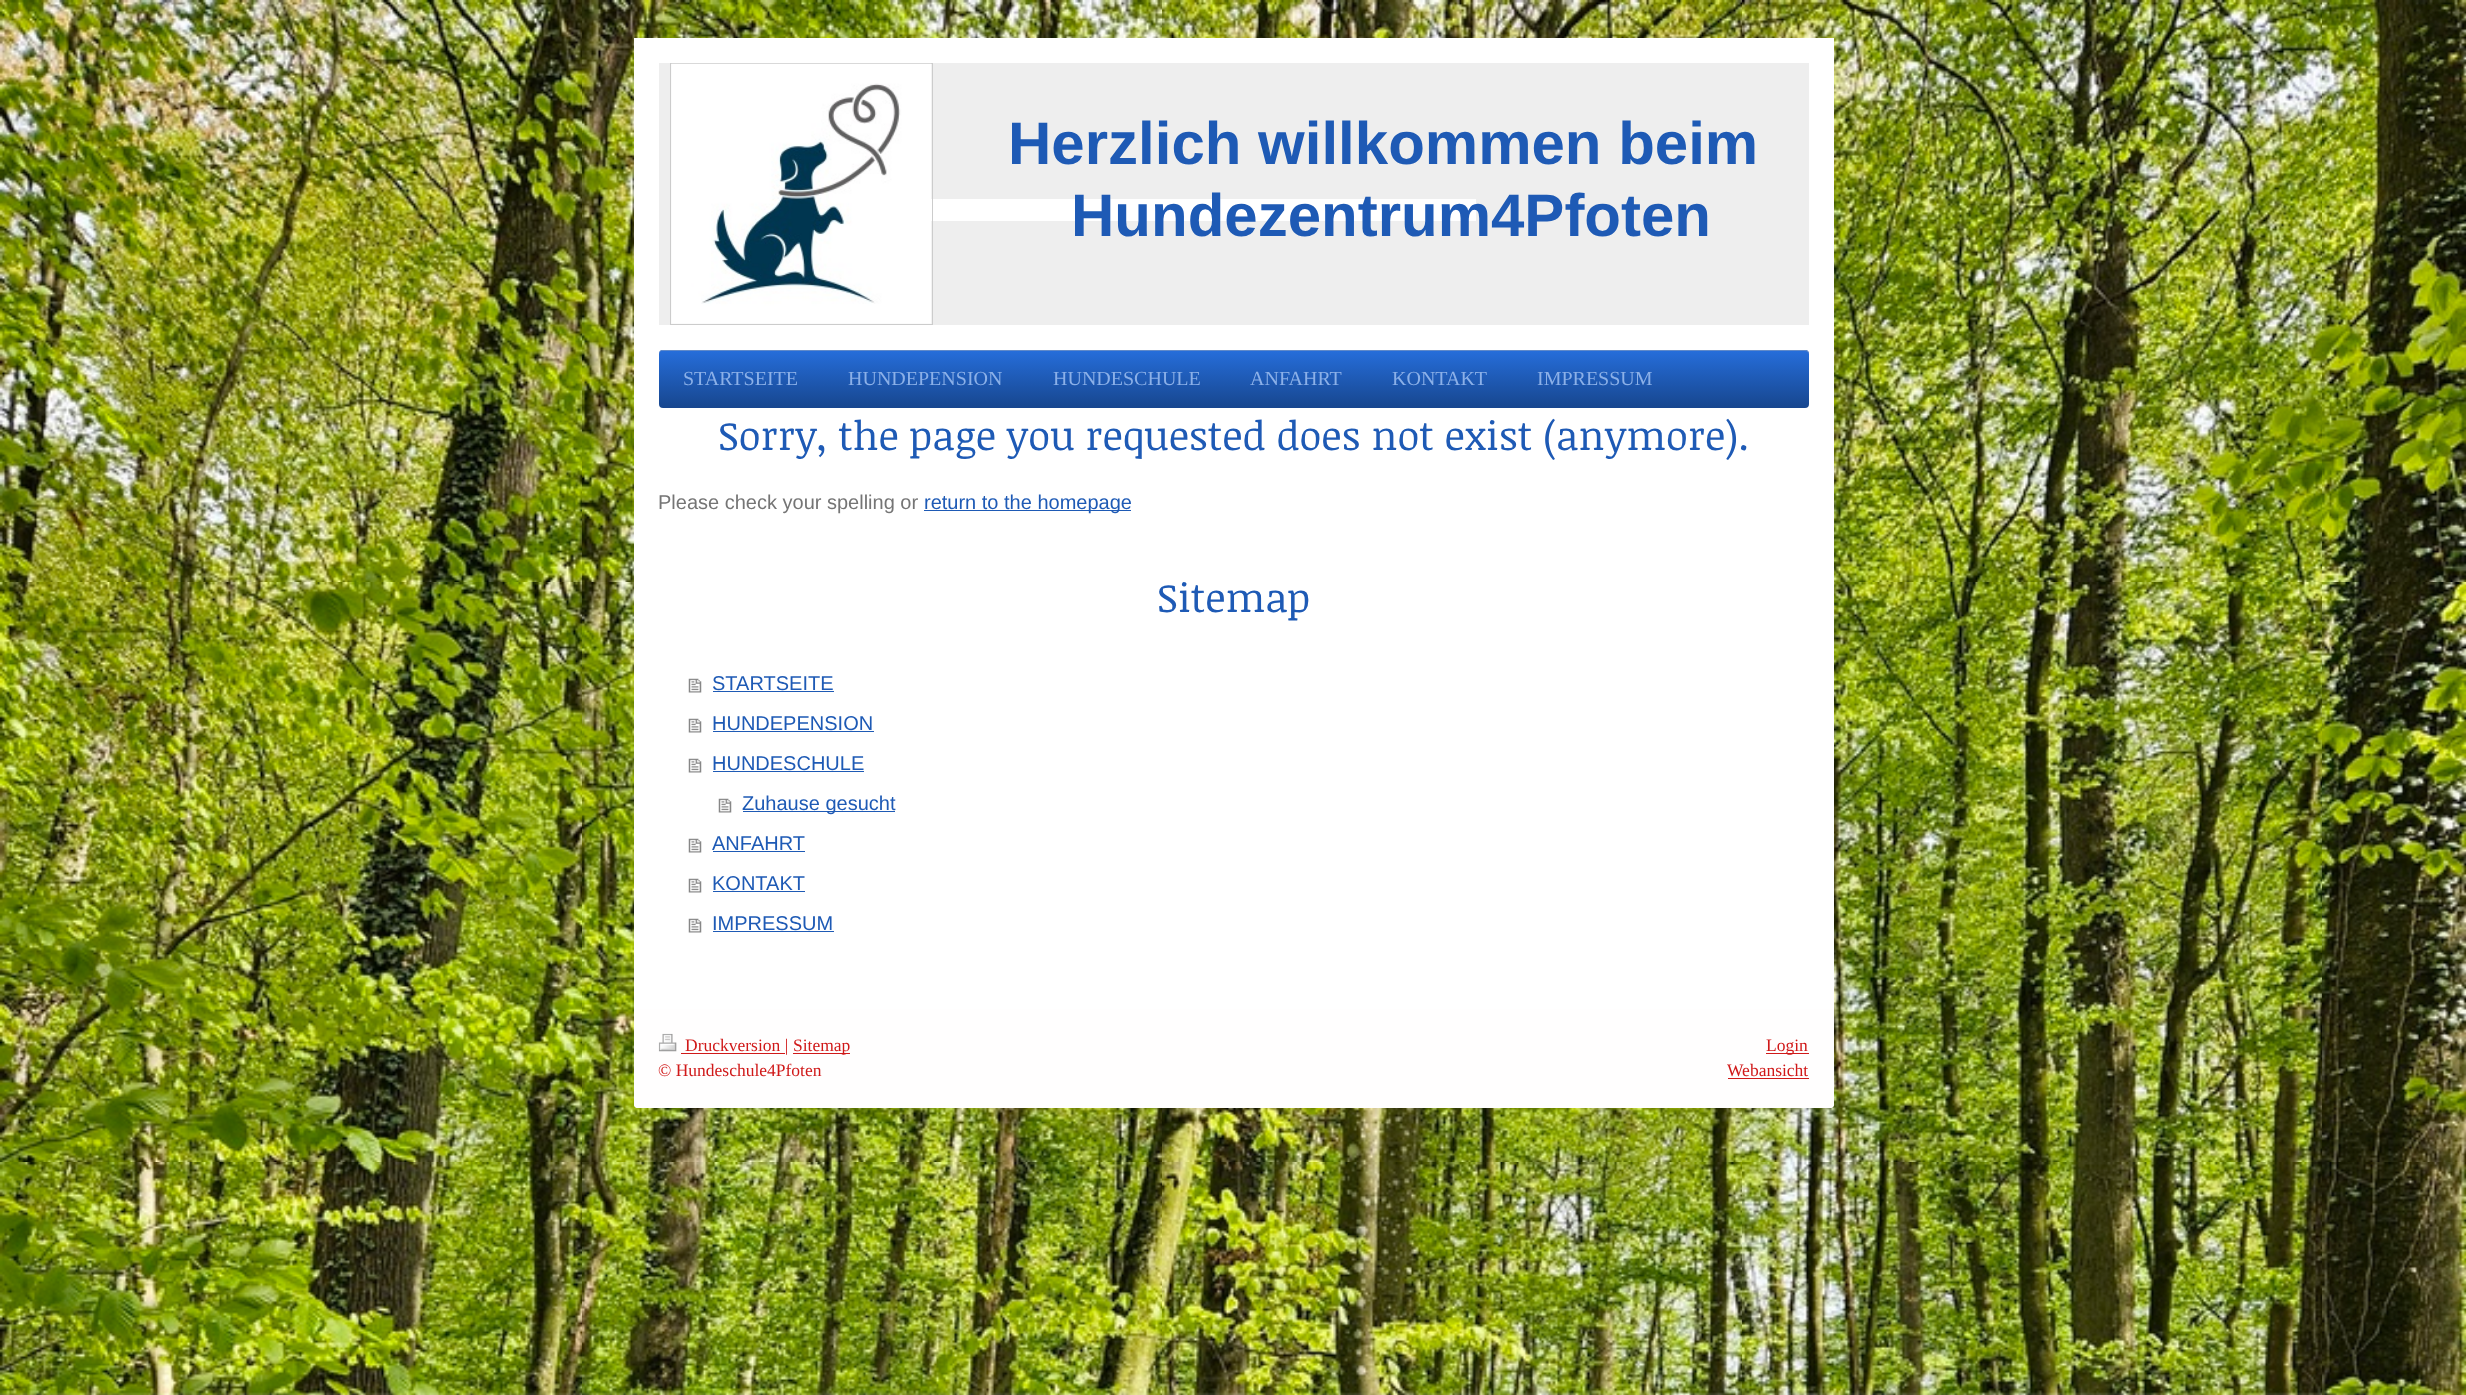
(async () => {
  const canvas = document.querySelector("canvas");
  canvas.width = 2466;
  canvas.height = 1395;
  const ctx = canvas.getContext("2d");
  ctx.miterLimit = 4;
  ctx.fontKerning = "normal";
  async function loadImage(src) {
    const img = new Image();
    img.src = src;
    await img.decode();
    return img;
  }
  let gradient, path;

  ctx.fillStyle = "#ffffff";
  ctx.fillRect(0, 0, 2466, 1395);
  ctx.drawImage(await loadImage("img/1.png"), 0, 0, 2466, 1395);
  ctx.beginPath();
  ctx.roundRect(634, 38, 1200, 1070, [0, 0, 4, 4]);
  ctx.fill();
  ctx.fillStyle = "#eeeeee";
  ctx.fillRect(659, 63, 1150, 262);
  ctx.fillStyle = "#ffffff";
  ctx.fillRect(931, 199, 545, 22);
  ctx.strokeStyle = "#cccccc";
  ctx.strokeRect(670.5, 63.5, 262, 261);
  ctx.drawImage(await loadImage("img/2.png"), 671, 63, 261, 261);
  gradient = ctx.createLinearGradient(659, 350, 659, 408);
  gradient.addColorStop(0, "#266edb");
  gradient.addColorStop(1, "#17468e");
  ctx.fillStyle = gradient;
  ctx.beginPath();
  ctx.roundRect(659, 350, 1150, 58, 4);
  ctx.fill();
  ctx.fillStyle = "#1d58b1";
  path = new Path2D("M662 351H1805C1807 351 1809 353 1809 355C1809 352 1808 350 1805 350H663C660 350 659 352 659 355C659 353 660 351 662 351Z");
  ctx.fill(path);
  ctx.fillStyle = "rgba(255, 255, 255, 0.3)";
  path = new Path2D("M662 351H1805C1807 351 1809 353 1809 355C1809 352 1808 350 1805 350H663C660 350 659 352 659 355C659 353 660 351 662 351Z");
  ctx.fill(path);
  ctx.fillStyle = "#1e5ab5";
  ctx.fillRect(924, 510, 207, 1);
  ctx.drawImage(await loadImage("img/3.png"), 688, 678, 14, 15);
  ctx.fillRect(713, 691, 121, 1);
  ctx.drawImage(await loadImage("img/3.png"), 688, 718, 14, 15);
  ctx.fillRect(713, 731, 161, 1);
  ctx.drawImage(await loadImage("img/3.png"), 688, 758, 14, 15);
  ctx.fillRect(713, 771, 151, 1);
  ctx.drawImage(await loadImage("img/3.png"), 718, 798, 14, 15);
  ctx.fillRect(743, 811, 152, 1);
  ctx.drawImage(await loadImage("img/3.png"), 688, 838, 14, 15);
  ctx.fillRect(713, 851, 92, 1);
  ctx.drawImage(await loadImage("img/3.png"), 688, 878, 14, 15);
  ctx.fillRect(713, 891, 92, 1);
  ctx.drawImage(await loadImage("img/3.png"), 688, 918, 14, 15);
  ctx.fillRect(713, 931, 121, 1);
  ctx.fillStyle = "#fffefe";
  ctx.beginPath();
  ctx.roundRect(634, 1009, 1200, 99, [0, 0, 4, 4]);
  ctx.fill();
  ctx.drawImage(await loadImage("img/4.png"), 658, 1033, 19, 19);
  for (const [x, y, w, h, color] of [
    [681, 1053, 104, 1, "#d01919"],
    [793, 1053, 57, 1, "#d01919"],
    [1766, 1053, 43, 1, "#d01919"],
    [1728, 1078, 81, 1, "#d01919"],
  ]) {
    ctx.fillStyle = color;
    ctx.fillRect(x, y, w, h);
  }
  ctx.font = "bold 60px Liberation Sans";
  ctx.fillStyle = "#1e5ab5";
  ctx.fillText("Herzlich willkommen beim", 1008, 164);
  ctx.fillText("Hundezentrum4Pfoten", 1071, 236);
  ctx.font = "20px Liberation Serif";
  ctx.fillStyle = "#8bb0e8";
  for (const [text, x, y] of [
    ["STARTSEITE", 683, 385],
    ["HUNDEPENSION", 848, 385],
    ["HUNDESCHULE", 1053, 385],
    ["ANFAHRT", 1250, 385],
    ["KONTAKT", 1392, 385],
    ["IMPRESSUM", 1537, 385],
  ]) {
    ctx.fillText(text, x, y);
  }
  ctx.font = "40px Noticia Text";
  ctx.fillStyle = "#1e5ab5";
  ctx.fillText("Sorry, the page you requested does not exist (anymore).", 718, 450);
  ctx.font = "20px Liberation Sans";
  ctx.fillStyle = "#757575";
  ctx.fillText("Please check your spelling or", 658, 509);
  ctx.fillStyle = "#1e5ab5";
  ctx.fillText("return to the homepage", 924, 509);
  ctx.font = "40px Noticia Text";
  ctx.fillText("Sitemap", 1157, 612);
  ctx.font = "20px Liberation Sans";
  for (const [text, x, y] of [
    ["STARTSEITE", 712, 690],
    ["HUNDEPENSION", 712, 730],
    ["HUNDESCHULE", 712, 770],
    ["Zuhause gesucht", 742, 810],
    ["ANFAHRT", 712, 850],
    ["KONTAKT", 712, 890],
    ["IMPRESSUM", 712, 930],
  ]) {
    ctx.fillText(text, x, y);
  }
  ctx.font = "17.5px Liberation Serif";
  ctx.fillStyle = "#d01919";
  for (const [text, x, y] of [
    ["Druckversion |", 685, 1051],
    ["Sitemap", 793, 1051],
    ["© Hundeschule4Pfoten", 658, 1076],
    ["Login", 1766, 1051],
    ["Webansicht", 1727, 1076],
  ]) {
    ctx.fillText(text, x, y);
  }
})();
